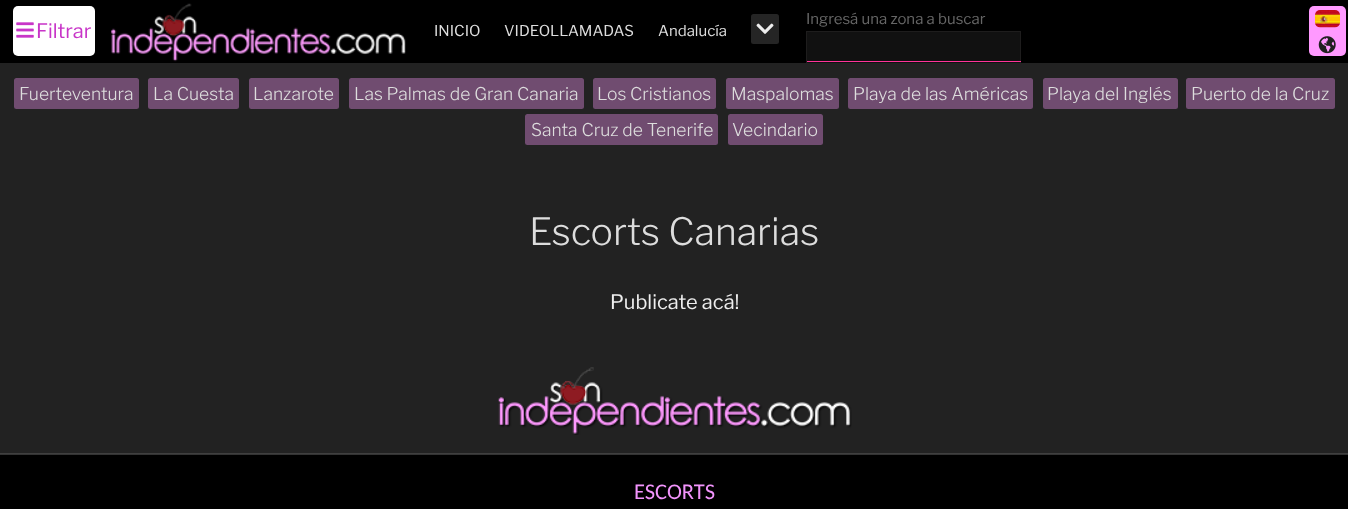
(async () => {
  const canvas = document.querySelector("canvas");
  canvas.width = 1348;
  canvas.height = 509;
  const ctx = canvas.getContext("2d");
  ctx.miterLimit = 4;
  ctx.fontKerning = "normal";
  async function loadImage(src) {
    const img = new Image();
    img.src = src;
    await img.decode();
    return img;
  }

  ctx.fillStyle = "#222222";
  ctx.fillRect(0, 0, 1348, 509);
  ctx.fillStyle = "#000000";
  ctx.fillRect(0, 0, 1348, 63);
  ctx.drawImage(await loadImage("img/1.png"), 111, 3, 295, 59);
  for (const [x, y, w, h, color] of [
    [807, 32, 213, 31, "#111111"],
    [806, 31, 215, 1, "#1e1d1d"],
    [1020, 31, 1, 32, "#1e1d1d"],
    [806, 61, 215, 1, "#ff3399"],
    [806, 31, 1, 32, "#1e1d1d"],
  ]) {
    ctx.fillStyle = color;
    ctx.fillRect(x, y, w, h);
  }
  ctx.fillStyle = "#ff99ff";
  ctx.beginPath();
  ctx.roundRect(1309, 6, 37, 50, 5);
  ctx.fill();
  ctx.drawImage(await loadImage("img/2.png"), 1315, 10, 25, 18);
  ctx.drawImage(await loadImage("img/3.png"), 1318, 36, 18, 18);
  ctx.fillStyle = "#ffffff";
  ctx.beginPath();
  ctx.roundRect(13, 6, 82, 50, 5);
  ctx.fill();
  ctx.drawImage(await loadImage("img/4.png"), 16, 22, 18, 16);
  ctx.fillStyle = "#252525";
  ctx.beginPath();
  ctx.roundRect(751, 14, 28, 30, 2.5);
  ctx.fill();
  ctx.drawImage(await loadImage("img/5.png"), 756, 23, 18, 11);
  ctx.fillStyle = "#704c70";
  ctx.beginPath();
  ctx.roundRect(14, 78, 125, 31, 2.5);
  ctx.fill();
  ctx.beginPath();
  ctx.roundRect(148, 78, 91, 31, 2.5);
  ctx.fill();
  ctx.beginPath();
  ctx.roundRect(249, 78, 90, 31, 2.5);
  ctx.fill();
  ctx.beginPath();
  ctx.roundRect(349, 78, 235, 31, 2.5);
  ctx.fill();
  ctx.beginPath();
  ctx.roundRect(593, 78, 123, 31, 2.5);
  ctx.fill();
  ctx.beginPath();
  ctx.roundRect(726, 78, 113, 31, 2.5);
  ctx.fill();
  ctx.beginPath();
  ctx.roundRect(848, 78, 185, 31, 2.5);
  ctx.fill();
  ctx.beginPath();
  ctx.roundRect(1043, 78, 135, 31, 2.5);
  ctx.fill();
  ctx.beginPath();
  ctx.roundRect(1186, 78, 149, 31, 2.5);
  ctx.fill();
  ctx.beginPath();
  ctx.roundRect(525, 114, 193, 31, 2.5);
  ctx.fill();
  ctx.beginPath();
  ctx.roundRect(728, 114, 95, 31, 2.5);
  ctx.fill();
  ctx.fillStyle = "#3f3f3f";
  ctx.fillRect(0, 453, 1348, 1);
  ctx.drawImage(await loadImage("img/6.png"), 498, 367, 354, 68);
  ctx.fillStyle = "#000000";
  ctx.fillRect(0, 455, 1348, 54);
  ctx.fillStyle = "#333333";
  ctx.fillRect(0, 454, 1348, 1);
  ctx.font = "100 15px 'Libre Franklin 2'";
  ctx.fillStyle = "#666666";
  ctx.fillText("Ingresá una zona a buscar", 806, 24);
  ctx.font = "100 20px 'Libre Franklin 2'";
  ctx.fillStyle = "#c835c8";
  ctx.fillText("Filtrar", 36, 38);
  ctx.font = "100 15px 'Libre Franklin 2'";
  ctx.fillStyle = "#dddddd";
  for (const [text, x, y] of [
    ["INICIO", 434, 36],
    ["VIDEOLLAMADAS", 504, 36],
    ["Andalucía", 658, 36],
  ]) {
    ctx.fillText(text, x, y);
  }
  ctx.font = "100 17.5px Libre Franklin";
  for (const [text, x, y] of [
    ["Fuerteventura", 19, 100],
    ["La Cuesta", 153, 100],
    ["Lanzarote", 253, 100],
    ["Las Palmas de Gran Canaria", 354, 100],
    ["Los Cristianos", 597, 100],
    ["Maspalomas", 731, 100],
    ["Playa de las Américas", 853, 100],
    ["Playa del Inglés", 1047, 100],
    ["Puerto de la Cruz", 1191, 100],
    ["Santa Cruz de Tenerife", 531, 136],
    ["Vecindario", 732, 136],
  ]) {
    ctx.fillText(text, x, y);
  }
  ctx.font = "100 37.5px Libre Franklin";
  ctx.fillText("Escorts Canarias", 529, 245);
  ctx.font = "100 20px 'Libre Franklin 2'";
  ctx.fillStyle = "#eeeeee";
  ctx.fillText("Publicate acá!", 610, 309);
  ctx.font = "22.5px Carlito";
  ctx.fillStyle = "#f294fc";
  ctx.fillText("ESCORTS", 634, 499);
})();
